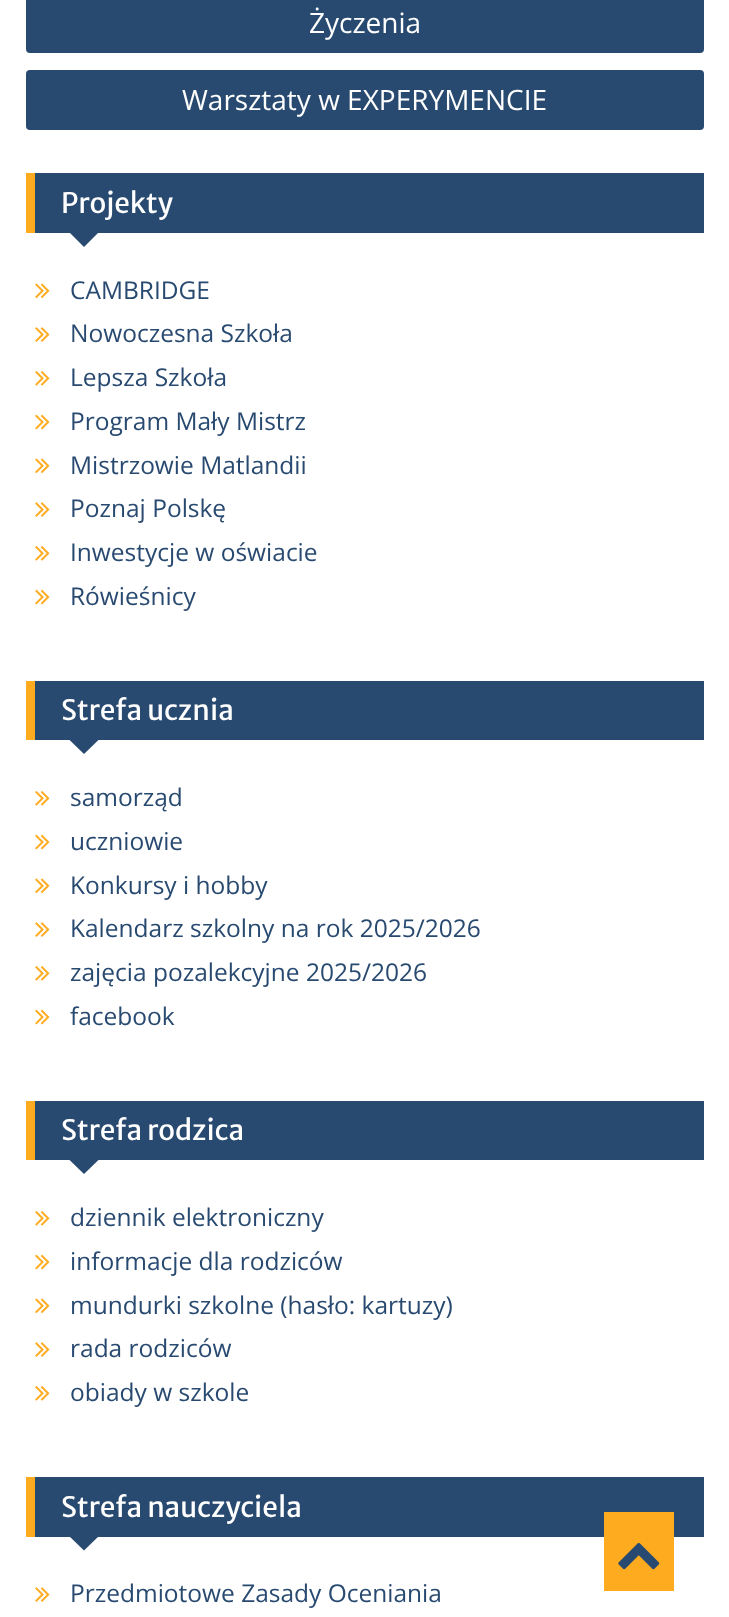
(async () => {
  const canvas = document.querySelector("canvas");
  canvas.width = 729;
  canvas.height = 1617;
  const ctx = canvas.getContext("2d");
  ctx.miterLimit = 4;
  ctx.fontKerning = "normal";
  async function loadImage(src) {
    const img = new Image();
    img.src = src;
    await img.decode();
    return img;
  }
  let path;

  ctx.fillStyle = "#ffffff";
  ctx.fillRect(0, 0, 729, 1617);
  ctx.fillStyle = "#294a70";
  ctx.beginPath();
  ctx.roundRect(26, -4, 678, 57, 4);
  ctx.fill();
  ctx.beginPath();
  ctx.roundRect(26, 70, 678, 60, 4);
  ctx.fill();
  ctx.fillRect(35, 173, 669, 60);
  ctx.fillStyle = "#ffab1f";
  ctx.fillRect(26, 173, 9, 60);
  ctx.fillStyle = "#294a70";
  path = new Path2D("M68 231H100L84 247Z");
  ctx.fill(path);
  ctx.drawImage(await loadImage("img/1.png"), 35, 283, 15, 16);
  ctx.drawImage(await loadImage("img/2.png"), 35, 327, 15, 15);
  ctx.drawImage(await loadImage("img/3.png"), 35, 371, 15, 15);
  ctx.drawImage(await loadImage("img/4.png"), 35, 414, 15, 16);
  ctx.drawImage(await loadImage("img/1.png"), 35, 458, 15, 16);
  ctx.drawImage(await loadImage("img/2.png"), 35, 502, 15, 15);
  ctx.drawImage(await loadImage("img/3.png"), 35, 546, 15, 15);
  ctx.drawImage(await loadImage("img/4.png"), 35, 589, 15, 16);
  ctx.fillRect(35, 681, 669, 59);
  ctx.fillStyle = "#ffab1f";
  ctx.fillRect(26, 681, 9, 59);
  ctx.fillStyle = "#294a70";
  path = new Path2D("M68 738.5H100L84 754Z");
  ctx.fill(path);
  ctx.drawImage(await loadImage("img/3.png"), 35, 791, 15, 15);
  ctx.drawImage(await loadImage("img/4.png"), 35, 834, 15, 16);
  ctx.drawImage(await loadImage("img/1.png"), 35, 878, 15, 16);
  ctx.drawImage(await loadImage("img/2.png"), 35, 922, 15, 15);
  ctx.drawImage(await loadImage("img/3.png"), 35, 966, 15, 15);
  ctx.drawImage(await loadImage("img/4.png"), 35, 1009, 15, 16);
  ctx.fillRect(35, 1101, 669, 59);
  ctx.fillStyle = "#ffab1f";
  ctx.fillRect(26, 1101, 9, 59);
  ctx.fillStyle = "#294a70";
  path = new Path2D("M68 1158.5H100L84 1174Z");
  ctx.fill(path);
  ctx.drawImage(await loadImage("img/3.png"), 35, 1211, 15, 15);
  ctx.drawImage(await loadImage("img/4.png"), 35, 1254, 15, 16);
  ctx.drawImage(await loadImage("img/1.png"), 35, 1298, 15, 16);
  ctx.drawImage(await loadImage("img/2.png"), 35, 1342, 15, 15);
  ctx.drawImage(await loadImage("img/3.png"), 35, 1386, 15, 15);
  ctx.fillRect(35, 1477, 669, 60);
  ctx.fillStyle = "#ffab1f";
  ctx.fillRect(26, 1477, 9, 60);
  ctx.fillStyle = "#294a70";
  path = new Path2D("M68 1535H100L84 1550.5Z");
  ctx.fill(path);
  ctx.drawImage(await loadImage("img/2.png"), 35, 1587, 15, 15);
  ctx.fillStyle = "#ffab1f";
  ctx.fillRect(604, 1512, 70, 79);
  ctx.drawImage(await loadImage("img/5.png"), 618, 1543, 42, 27);
  ctx.font = "28px Open Sans";
  ctx.fillStyle = "#ffffff";
  ctx.fillText("Życzenia", 309, 33);
  ctx.fillText("Warsztaty w EXPERYMENCIE", 182, 110);
  ctx.font = "28px Merriweather Sans";
  ctx.fillText("Projekty", 61, 213);
  ctx.font = "24.5px Open Sans";
  ctx.fillStyle = "#294a70";
  for (const [text, x, y] of [
    ["CAMBRIDGE", 70, 299],
    ["Nowoczesna Szkoła", 70, 342],
    ["Lepsza Szkoła", 70, 386],
    ["Program Mały Mistrz", 70, 430],
    ["Mistrzowie Matlandii", 70, 474],
    ["Poznaj Polskę", 70, 517],
    ["Inwestycje w oświacie", 70, 561],
    ["Rówieśnicy", 70, 605],
  ]) {
    ctx.fillText(text, x, y);
  }
  ctx.font = "28px Merriweather Sans";
  ctx.fillStyle = "#ffffff";
  ctx.fillText("Strefa ucznia", 61, 720);
  ctx.font = "24.5px Open Sans";
  ctx.fillStyle = "#294a70";
  for (const [text, x, y] of [
    ["samorząd", 70, 806],
    ["uczniowie", 70, 850],
    ["Konkursy i hobby", 70, 894],
    ["Kalendarz szkolny na rok 2025/2026", 70, 937],
    ["zajęcia pozalekcyjne 2025/2026", 70, 981],
    ["facebook", 70, 1025],
  ]) {
    ctx.fillText(text, x, y);
  }
  ctx.font = "28px Merriweather Sans";
  ctx.fillStyle = "#ffffff";
  ctx.fillText("Strefa rodzica", 61, 1140);
  ctx.font = "24.5px Open Sans";
  ctx.fillStyle = "#294a70";
  for (const [text, x, y] of [
    ["dziennik elektroniczny", 70, 1226],
    ["informacje dla rodziców", 70, 1270],
    ["mundurki szkolne (hasło: kartuzy)", 70, 1314],
    ["rada rodziców", 70, 1357],
    ["obiady w szkole", 70, 1401],
  ]) {
    ctx.fillText(text, x, y);
  }
  ctx.font = "28px Merriweather Sans";
  ctx.fillStyle = "#ffffff";
  ctx.fillText("Strefa nauczyciela", 61, 1517);
  ctx.font = "24.5px Open Sans";
  ctx.fillStyle = "#294a70";
  ctx.fillText("Przedmiotowe Zasady Oceniania", 70, 1602);
})();
